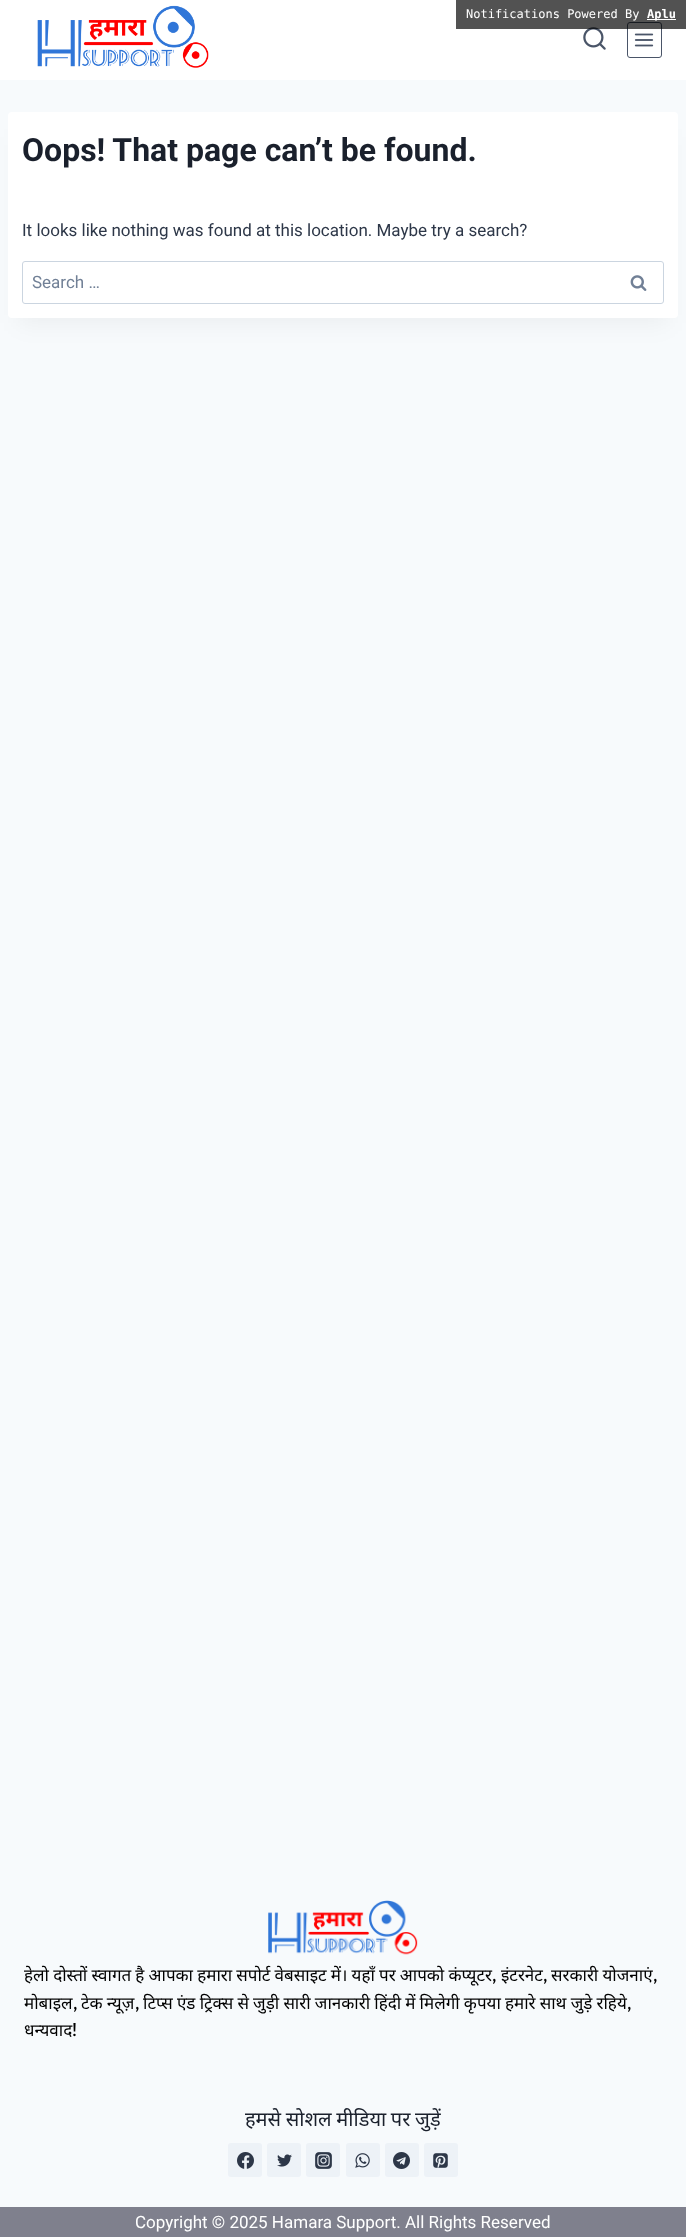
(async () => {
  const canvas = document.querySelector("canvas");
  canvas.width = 686;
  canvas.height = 2237;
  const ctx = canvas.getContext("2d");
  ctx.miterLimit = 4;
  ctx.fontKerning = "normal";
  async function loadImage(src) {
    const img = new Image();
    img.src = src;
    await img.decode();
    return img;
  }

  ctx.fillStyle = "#f7fafc";
  ctx.fillRect(0, 0, 686, 2237);
  ctx.fillStyle = "#ffffff";
  ctx.fillRect(0, 0, 686, 80);
  ctx.drawImage(await loadImage("img/2.png"), 583, 27, 23, 23);
  ctx.beginPath();
  ctx.roundRect(627.5, 22.5, 34, 35, 2.5);
  ctx.strokeStyle = "#4a5568";
  ctx.stroke();
  ctx.fillStyle = "rgba(0, 0, 0, 0.68)";
  ctx.fillRect(456, 0, 230, 29);
  ctx.fillStyle = "#ffffff";
  ctx.fillRect(647, 19, 29, 1);
  ctx.drawImage(await loadImage("img/1.png"), 37, 5, 172, 63);
  ctx.drawImage(await loadImage("img/3.png"), 634, 33, 20, 14);
  ctx.fillStyle = "rgba(0, 0, 0, 0.05)";
  ctx.filter = "blur(12.5px)";
  ctx.beginPath();
  ctx.rect(18, 137, 650, 186);
  ctx.fill();
  ctx.filter = "none";
  ctx.fillStyle = "#ffffff";
  ctx.beginPath();
  ctx.roundRect(8, 112, 670, 206, 4);
  ctx.fill();
  ctx.beginPath();
  ctx.roundRect(22.5, 261.5, 641, 42, 2.5);
  ctx.strokeStyle = "#cbd5e0";
  ctx.stroke();
  ctx.drawImage(await loadImage("img/4.png"), 630, 275, 17, 16);
  ctx.drawImage(await loadImage("img/5.png"), 268, 1900, 150, 55);
  ctx.fillStyle = "#edf2f7";
  ctx.beginPath();
  ctx.roundRect(228, 2143, 34, 34, 3);
  ctx.fill();
  ctx.drawImage(await loadImage("img/6.png"), 237, 2152, 17, 17);
  ctx.beginPath();
  ctx.roundRect(267, 2143, 34, 34, 3);
  ctx.fill();
  ctx.drawImage(await loadImage("img/7.png"), 277, 2154, 15, 13);
  ctx.beginPath();
  ctx.roundRect(306, 2143, 34, 34, 3);
  ctx.fill();
  ctx.drawImage(await loadImage("img/8.png"), 315, 2152, 17, 17);
  ctx.beginPath();
  ctx.roundRect(346, 2143, 34, 34, 3);
  ctx.fill();
  ctx.drawImage(await loadImage("img/9.png"), 355, 2153, 15, 15);
  ctx.beginPath();
  ctx.roundRect(385, 2143, 34, 34, 3);
  ctx.fill();
  ctx.drawImage(await loadImage("img/10.png"), 393, 2152, 17, 17);
  ctx.beginPath();
  ctx.roundRect(424, 2143, 34, 34, 3);
  ctx.fill();
  ctx.drawImage(await loadImage("img/11.png"), 433, 2153, 15, 15);
  ctx.fillStyle = "#7f808d";
  ctx.fillRect(0, 2207, 686, 30);
  ctx.font = "12px DejaVu Sans Mono";
  ctx.fillStyle = "#ffffff";
  ctx.fillText("Notifications Powered By", 466, 18);
  ctx.font = "bold 12px DejaVu Sans Mono";
  ctx.fillText("Aplu", 647, 18);
  ctx.font = "bold 32px Roboto";
  ctx.fillStyle = "#1a202c";
  ctx.fillText("Oops! That page can’t be found.", 22, 161);
  ctx.font = "17px Roboto";
  ctx.fillStyle = "#2d3748";
  ctx.fillText("It looks like nothing was found at this location. Maybe try a search?", 22, 236);
  ctx.fillStyle = "#718096";
  ctx.fillText("Search …", 32, 288);
  ctx.wordSpacing = "-0.25px";
  ctx.font = "17px Noto Sans";
  ctx.fillStyle = "#000000";
  ctx.fillText("हेलो दोस्तों स्वागत है आपका हमारा सपोर्ट वेबसाइट में। यहाँ पर आपको कंप्यूटर", 24, 1981);
  ctx.wordSpacing = "0px";
  ctx.font = "17px Alata";
  ctx.fillText(",", 492, 1981);
  ctx.font = "17px Noto Sans";
  ctx.fillText("इंटरनेट", 501, 1981);
  ctx.font = "17px Alata";
  ctx.fillText(",", 543, 1981);
  ctx.wordSpacing = "-0.25px";
  ctx.font = "17px Noto Sans";
  ctx.fillText("सरकारी योजनाएं", 551, 1981);
  ctx.wordSpacing = "0px";
  ctx.font = "17px Alata";
  ctx.fillText(",", 653, 1981);
  ctx.font = "17px Noto Sans";
  ctx.fillText("मोबाइल", 24, 2009);
  ctx.wordSpacing = "-0.25px";
  ctx.fillText("टिप्स एंड ट्रिक्स से जुड़ी सारी जानकारी हिंदी में मिलेगी कृपया हमारे साथ जुड़े रहिये", 143, 2009);
  ctx.wordSpacing = "0px";
  ctx.font = "17px Alata";
  ctx.fillText(",", 73, 2009);
  ctx.wordSpacing = "-0.25px";
  ctx.font = "17px Noto Sans";
  ctx.fillText("टेक न्यूज़", 81, 2009);
  ctx.wordSpacing = "0px";
  ctx.font = "17px Alata";
  ctx.fillText(",", 135, 2009);
  ctx.fillText(",", 627, 2009);
  ctx.font = "17px Noto Sans";
  ctx.fillText("धन्यवाद", 24, 2036);
  ctx.font = "17px Alata";
  ctx.fillText("!", 72, 2036);
  ctx.wordSpacing = "-0.5px";
  ctx.font = "20px Noto Sans";
  ctx.fillStyle = "#1a202c";
  ctx.fillText("हमसे सोशल मीडिया पर जुड़ें", 245, 2126);
  ctx.wordSpacing = "0px";
  ctx.font = "17px Roboto";
  ctx.fillStyle = "#ffffff";
  ctx.fillText("Copyright © 2025 Hamara Support. All Rights Reserved", 135, 2228);
})();
